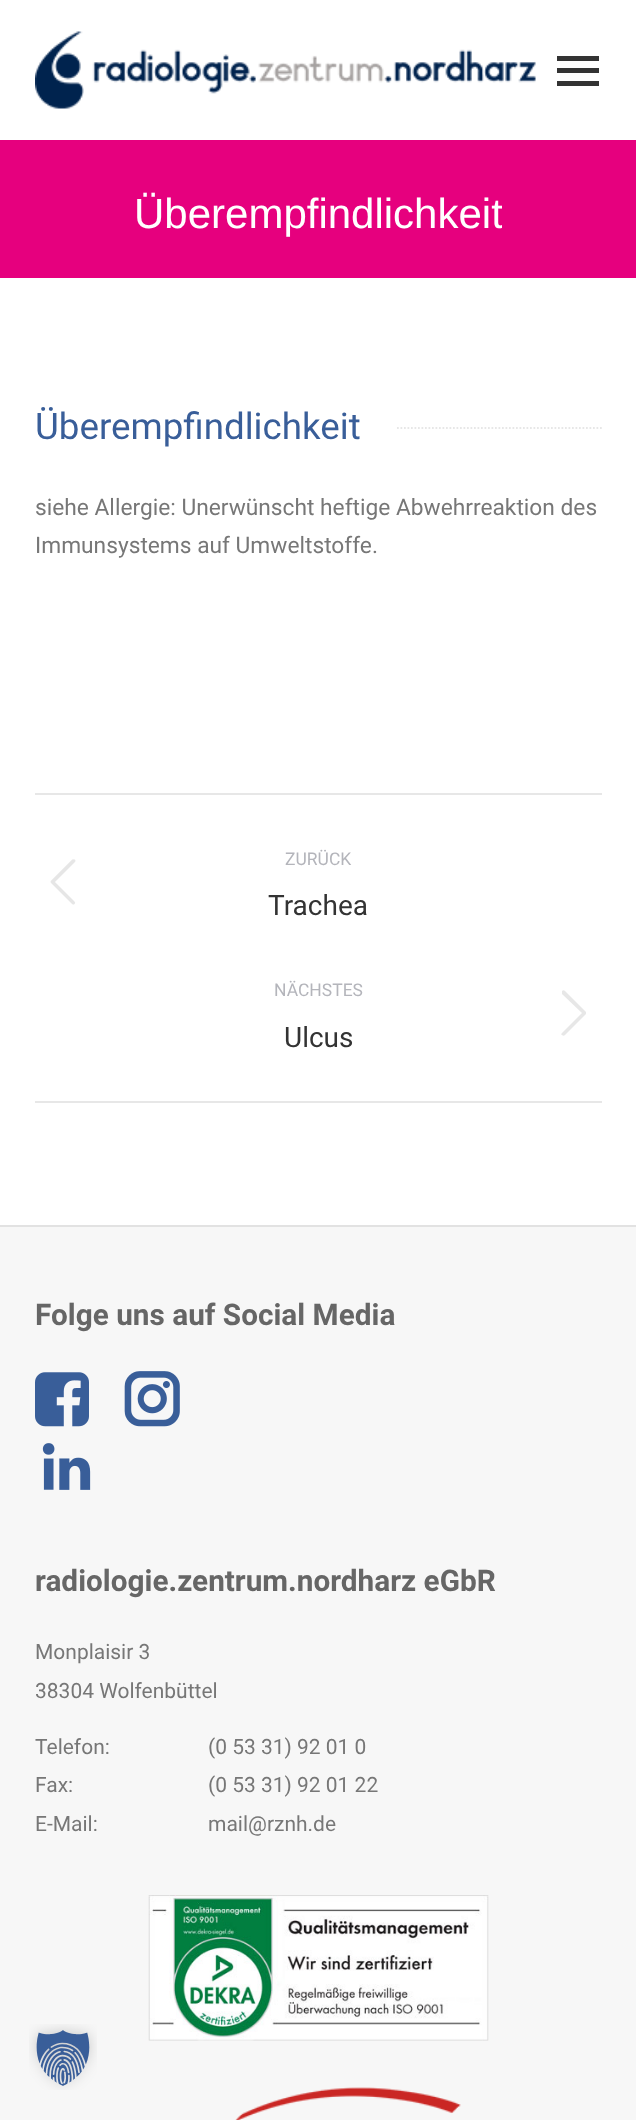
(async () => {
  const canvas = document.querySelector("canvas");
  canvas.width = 636;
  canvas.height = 2120;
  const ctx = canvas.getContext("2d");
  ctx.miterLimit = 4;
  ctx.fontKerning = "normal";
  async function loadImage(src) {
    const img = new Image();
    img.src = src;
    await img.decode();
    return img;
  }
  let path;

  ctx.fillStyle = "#ffffff";
  ctx.fillRect(0, 0, 636, 2120);
  ctx.drawImage(await loadImage("img/1.png"), 35, 31, 501, 78);
  for (const [x, y, w, h, color] of [
    [557, 56, 42, 5, "#333333"],
    [557, 68, 42, 5, "#333333"],
    [557, 81, 42, 5, "#333333"],
    [0, 140, 636, 138, "#e6007e"],
  ]) {
    ctx.fillStyle = color;
    ctx.fillRect(x, y, w, h);
  }
  ctx.save();
  ctx.beginPath();
  ctx.rect(35, 401, 567, 52);
  ctx.clip();
  path = new Path2D("M397 428H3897");
  ctx.strokeStyle = "#e7e7e7";
  ctx.lineWidth = 1.8;
  ctx.setLineDash([1.75, 1.75]);
  ctx.stroke(path);
  ctx.restore();
  ctx.fillStyle = "#e7e7e7";
  ctx.fillRect(35, 793, 567, 2);
  ctx.fillRect(35, 1101, 567, 2);
  ctx.drawImage(await loadImage("img/2.png"), 50, 859, 26, 46);
  path = new Path2D("M562 991C563 990 564 990 565 991L586 1012C586 1013 586 1014 586 1014L565 1035C564 1036 563 1036 562 1035C561 1035 561 1034 562 1033L582 1013L562 994Z");
  ctx.fill(path);
  ctx.fillStyle = "#f7f7f7";
  ctx.fillRect(0, 1227, 636, 893);
  ctx.fillStyle = "#e2e2e2";
  ctx.fillRect(0, 1225, 636, 2);
  ctx.drawImage(await loadImage("img/3.png"), 35, 1372, 54, 55);
  ctx.drawImage(await loadImage("img/4.png"), 124, 1371, 56, 56);
  ctx.drawImage(await loadImage("img/5.png"), 42, 1443, 49, 47);
  ctx.drawImage(await loadImage("img/6.png"), 148, 1895, 341, 146);
  ctx.drawImage(await loadImage("img/7.png"), 235, 2087, 226, 33);
  ctx.drawImage(await loadImage("img/8.png"), 29, 2024, 68, 66);
  ctx.save();
  ctx.beginPath();
  ctx.rect(135, 184, 367, 59);
  ctx.clip();
  ctx.font = "42px Liberation Sans";
  ctx.fillStyle = "#ffffff";
  ctx.fillText("Überempfindlichkeit", 134, 228);
  ctx.restore();
  ctx.font = "36.75px Roboto";
  ctx.fillStyle = "#395e99";
  ctx.fillText("Überempfindlichkeit", 35, 439);
  ctx.font = "22.75px Roboto";
  ctx.fillStyle = "#777777";
  ctx.fillText("siehe Allergie: Unerwünscht heftige Abwehrreaktion des", 35, 515);
  ctx.fillText("Immunsystems auf Umweltstoffe.", 35, 553);
  ctx.font = "17.5px Roboto";
  ctx.fillStyle = "#b4b5bb";
  ctx.fillText("ZURÜCK", 285, 865);
  ctx.font = "28px Roboto";
  ctx.fillStyle = "#333333";
  ctx.fillText("Trachea", 268, 915);
  ctx.font = "17.5px Roboto";
  ctx.fillStyle = "#b4b5bb";
  ctx.fillText("NÄCHSTES", 274, 996);
  ctx.font = "28px Roboto";
  ctx.fillStyle = "#333333";
  ctx.fillText("Ulcus", 284, 1047);
  ctx.font = "bold 29.75px Roboto";
  ctx.fillStyle = "#666666";
  ctx.fillText("Folge uns auf Social Media", 35, 1325);
  ctx.fillText("radiologie.zentrum.nordharz eGbR", 35, 1591);
  ctx.font = "21px Roboto";
  ctx.fillStyle = "#777777";
  for (const [text, x, y] of [
    ["Monplaisir 3", 35, 1659],
    ["38304 Wolfenbüttel", 35, 1698],
    ["Telefon:", 35, 1754],
    ["(0 53 31) 92 01 0", 208, 1754],
    ["Fax:", 35, 1792],
    ["(0 53 31) 92 01 22", 208, 1792],
    ["E-Mail:", 35, 1831],
    ["mail@rznh.de", 208, 1831],
  ]) {
    ctx.fillText(text, x, y);
  }
})();
